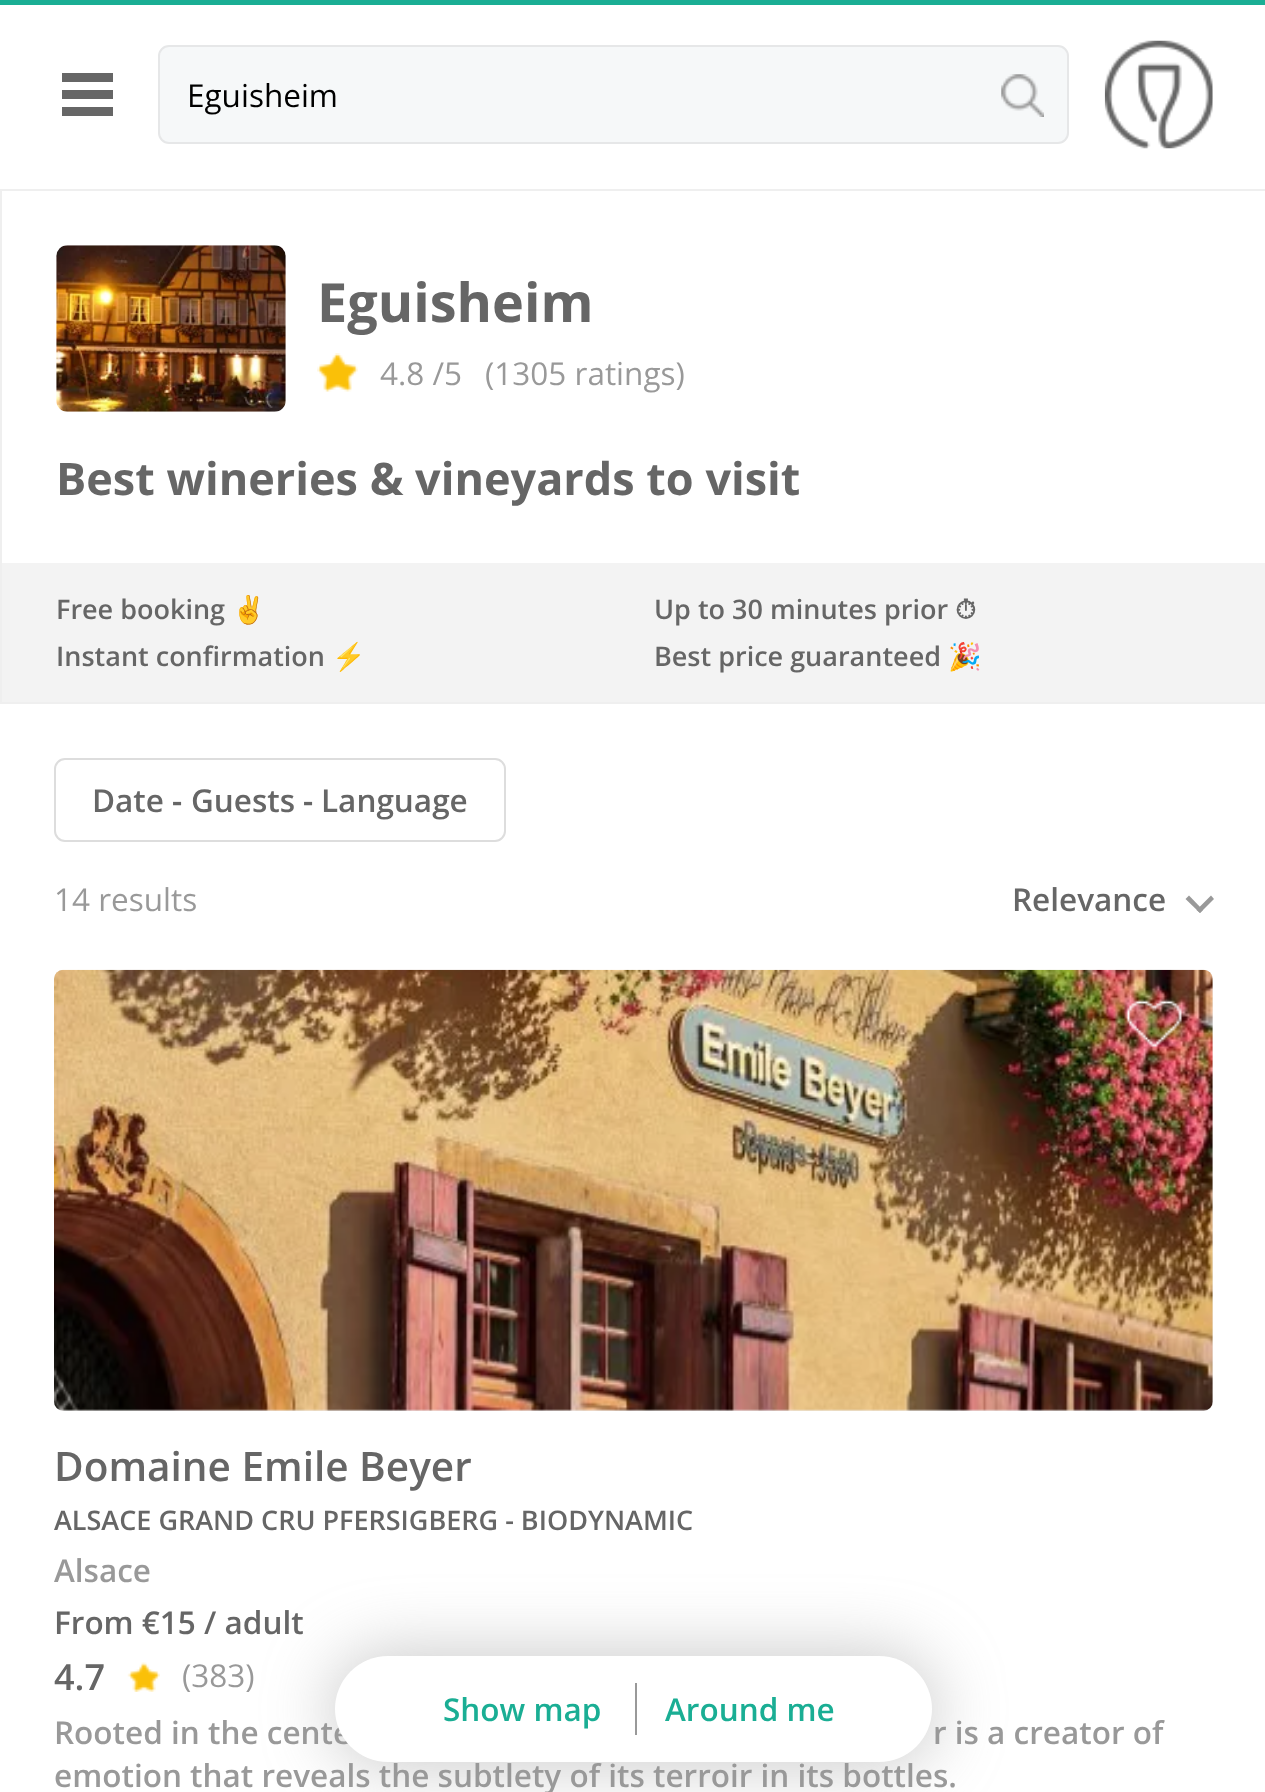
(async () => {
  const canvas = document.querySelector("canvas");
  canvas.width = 1265;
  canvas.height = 1792;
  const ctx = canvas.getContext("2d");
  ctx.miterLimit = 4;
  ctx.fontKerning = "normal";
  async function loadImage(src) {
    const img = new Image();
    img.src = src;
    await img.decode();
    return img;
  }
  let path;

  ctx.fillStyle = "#ffffff";
  ctx.fillRect(0, 0, 1265, 1792);
  ctx.fillStyle = "#1aae94";
  ctx.fillRect(0, 0, 1265, 5);
  ctx.fillStyle = "#666666";
  path = new Path2D("M62 73H113V82H62ZM62 99V90H113V99ZM62 116V107H113V116Z");
  ctx.fill(path);
  ctx.fillStyle = "#f6f8f9";
  ctx.beginPath();
  ctx.roundRect(159, 46, 909, 97, 10);
  ctx.fill();
  ctx.strokeStyle = "#e6e7e8";
  ctx.lineWidth = 2;
  ctx.stroke();
  ctx.drawImage(await loadImage("img/1.png"), 1001, 74, 43, 43);
  ctx.drawImage(await loadImage("img/2.png"), 1104, 40, 109, 109);
  ctx.strokeStyle = "#efefef";
  ctx.strokeRect(1, 190, 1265, 513);
  ctx.drawImage(await loadImage("img/3.png"), 56, 245, 230, 167);
  ctx.drawImage(await loadImage("img/4.png"), 317, 353, 41, 39);
  ctx.fillStyle = "#f3f3f3";
  ctx.fillRect(2, 563, 1263, 139);
  ctx.beginPath();
  ctx.roundRect(55, 759, 450, 82, 10);
  ctx.strokeStyle = "#dddddd";
  ctx.stroke();
  ctx.fillStyle = "#999999";
  path = new Path2D("M1211 895.5L1214 899L1200 913L1196.5 910Z");
  ctx.fill(path);
  path = new Path2D("M1189 895.5L1203 910L1200 913L1185.5 899Z");
  ctx.fill(path);
  ctx.fillStyle = "#eeeeee";
  ctx.beginPath();
  ctx.roundRect(54, 970, 1159, 441, 9);
  ctx.fill();
  ctx.drawImage(await loadImage("img/5.png"), 54, 969, 1159, 442);
  ctx.drawImage(await loadImage("img/6.png"), 1125, 998, 59, 50);
  ctx.drawImage(await loadImage("img/7.png"), 127, 1662, 33, 30);
  ctx.fillStyle = "rgba(150, 150, 150, 0.5)";
  ctx.filter = "blur(34px)";
  ctx.beginPath();
  ctx.roundRect(331, 1652, 605, 114, 57);
  ctx.fill();
  ctx.filter = "none";
  ctx.font = "31.5px Open Sans";
  ctx.fillStyle = "#000000";
  ctx.fillText("Eguisheim", 187, 107);
  ctx.font = "bold 54px Open Sans";
  ctx.fillStyle = "#666666";
  ctx.fillText("Eguisheim", 317, 322);
  ctx.font = "31.5px Open Sans";
  ctx.fillStyle = "#999999";
  ctx.fillText("4.8 /5", 380, 385);
  ctx.fillText("(1305 ratings)", 485, 385);
  ctx.font = "bold 45px Open Sans";
  ctx.fillStyle = "#666666";
  ctx.fillText("Best wineries & vineyards to visit", 56, 495);
  ctx.font = "600 27px Open Sans";
  ctx.fillText("Free booking", 56, 619);
  ctx.font = "bold 27px Noto Color Emoji";
  ctx.fillText("✌️", 232, 619);
  ctx.font = "600 27px Open Sans";
  ctx.fillText("Up to 30 minutes prior", 654, 619);
  ctx.font = "bold 27px FreeSerif";
  ctx.fillText("⏱", 955, 619);
  ctx.font = "600 27px Open Sans";
  ctx.fillText("Instant confirmation", 56, 666);
  ctx.font = "bold 27px Noto Color Emoji";
  ctx.fillText("⚡️", 332, 666);
  ctx.font = "600 27px Open Sans";
  ctx.fillText("Best price guaranteed", 654, 666);
  ctx.font = "bold 27px Noto Color Emoji";
  ctx.fillText("🎉", 948, 666);
  ctx.font = "600 31.5px Open Sans";
  ctx.fillText("Date", 92, 812);
  ctx.font = "600 31.5px Noto Sans";
  ctx.fillText("-", 172, 812);
  ctx.font = "600 31.5px Open Sans";
  ctx.fillText("Guests", 191, 812);
  ctx.font = "600 31.5px Noto Sans";
  ctx.fillText("-", 303, 812);
  ctx.font = "600 31.5px Open Sans";
  ctx.fillText("Language", 321, 812);
  ctx.font = "31.5px Open Sans";
  ctx.fillStyle = "#999999";
  ctx.fillText("14 results", 54, 911);
  ctx.font = "600 31.5px Open Sans";
  ctx.fillStyle = "#666666";
  ctx.fillText("Relevance", 1012, 911);
  ctx.font = "600 40.5px Open Sans";
  ctx.fillText("Domaine Emile Beyer", 54, 1481);
  ctx.font = "600 27px Open Sans";
  ctx.fillText("ALSACE GRAND CRU PFERSIGBERG - BIODYNAMIC", 54, 1530);
  ctx.font = "600 31.5px Open Sans";
  ctx.fillStyle = "#999999";
  ctx.fillText("Alsace", 54, 1582);
  ctx.fillStyle = "#666666";
  ctx.fillText("From €15 / adult", 54, 1634);
  ctx.font = "600 36px Open Sans";
  ctx.fillText("4.7", 54, 1690);
  ctx.font = "31.5px Open Sans";
  ctx.fillStyle = "#999999";
  ctx.fillText("(383)", 182, 1687);
  ctx.font = "600 31.5px Open Sans";
  for (const [text, x, y] of [
    ["Rooted in the cente", 54, 1744],
    ["r is a creator of", 933, 1744],
    ["emotion that reveals the subtlety of its terroir in its bottles.", 54, 1787],
  ]) {
    ctx.fillText(text, x, y);
  }
  ctx.fillStyle = "#ffffff";
  ctx.beginPath();
  ctx.roundRect(335, 1656, 597, 106, 53);
  ctx.fill();
  ctx.fillStyle = "#1aae94";
  ctx.fillText("Show map", 443, 1721);
  ctx.fillStyle = "#999999";
  ctx.fillRect(635, 1683, 2, 52);
  ctx.fillStyle = "#1aae94";
  ctx.fillText("Around me", 665, 1721);
})();
